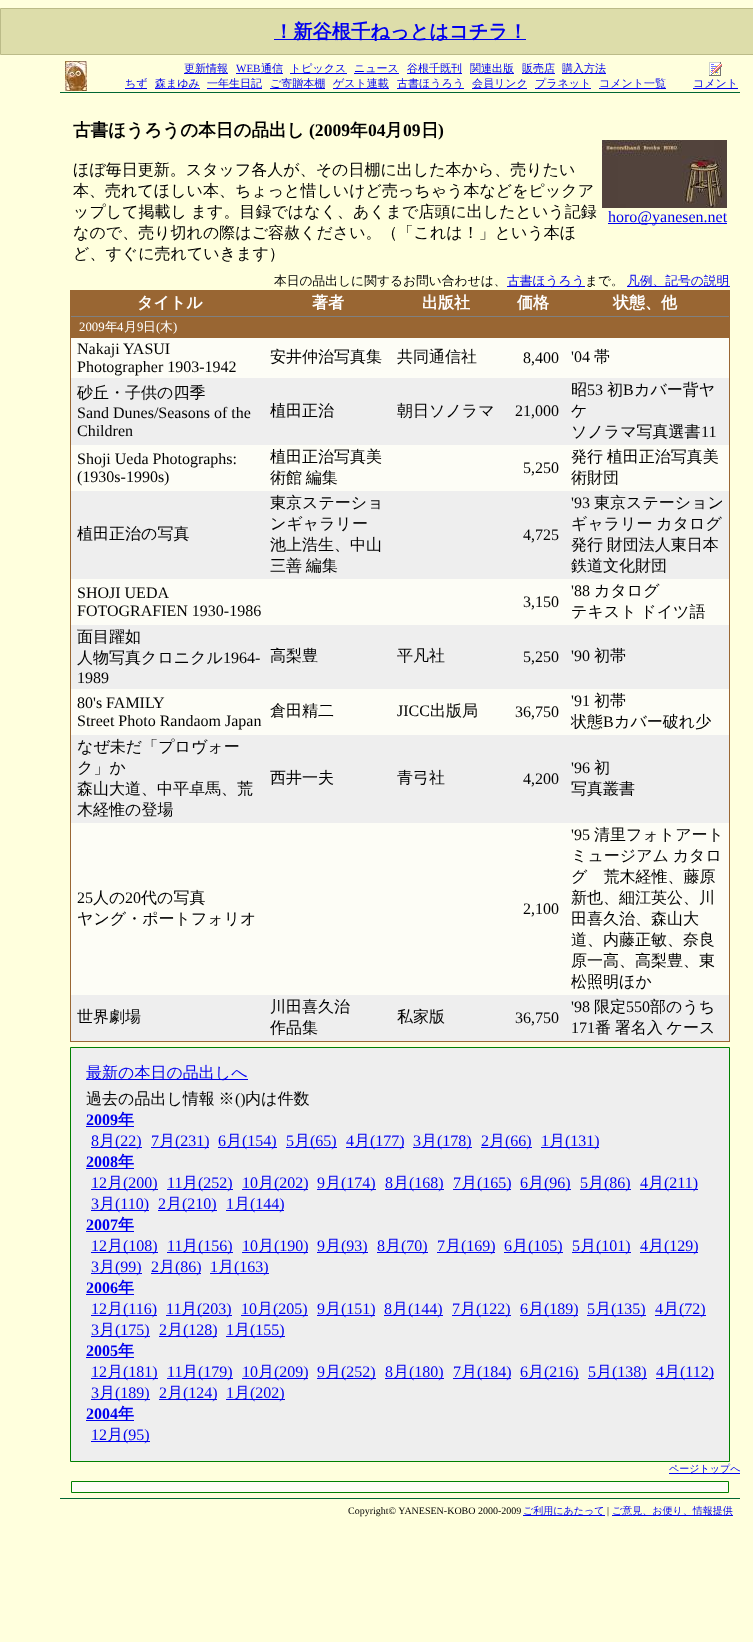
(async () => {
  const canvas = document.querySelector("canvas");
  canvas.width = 753;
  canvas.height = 1642;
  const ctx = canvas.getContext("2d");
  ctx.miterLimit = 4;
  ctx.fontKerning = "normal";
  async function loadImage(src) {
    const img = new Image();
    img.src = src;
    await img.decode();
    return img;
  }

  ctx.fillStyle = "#ffffdd";
  ctx.fillRect(0, 0, 753, 1642);
  ctx.fillStyle = "#ddddaa";
  ctx.beginPath();
  ctx.rect(0.5, 8.5, 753, 46);
  ctx.fill();
  ctx.strokeStyle = "#bbbb88";
  ctx.stroke();
  ctx.fillStyle = "#0000ee";
  ctx.fillRect(274, 39, 252, 1);
  ctx.fillStyle = "#006633";
  ctx.fillRect(60, 92, 680, 1);
  ctx.drawImage(await loadImage("img/1.png"), 65, 61, 22, 30);
  for (const [x, y, w, h, color] of [
    [184, 73, 44, 1, "#0000ee"],
    [236, 73, 47, 1, "#0000ee"],
    [290, 73, 57, 1, "#0000ee"],
    [354, 73, 45, 1, "#0000ee"],
    [407, 73, 55, 1, "#0000ee"],
    [470, 73, 44, 1, "#0000ee"],
    [522, 73, 33, 1, "#0000ee"],
    [562, 73, 44, 1, "#0000ee"],
    [125, 88, 22, 1, "#0000ee"],
    [155, 88, 45, 1, "#0000ee"],
    [207, 88, 55, 1, "#0000ee"],
    [270, 88, 55, 1, "#0000ee"],
    [333, 88, 56, 1, "#0000ee"],
    [397, 88, 67, 1, "#0000ee"],
    [472, 88, 55, 1, "#0000ee"],
    [535, 88, 56, 1, "#0000ee"],
    [599, 88, 67, 1, "#0000ee"],
  ]) {
    ctx.fillStyle = color;
    ctx.fillRect(x, y, w, h);
  }
  ctx.drawImage(await loadImage("img/2.png"), 709, 62, 13, 14);
  ctx.fillRect(693, 88, 45, 1);
  ctx.drawImage(await loadImage("img/3.png"), 602, 140, 125, 68);
  for (const [x, y, w, h, color] of [
    [608, 223, 119, 1, "#0000ee"],
    [507, 286, 78, 1, "#0000ee"],
    [627, 286, 103, 1, "#0000ee"],
  ]) {
    ctx.fillStyle = color;
    ctx.fillRect(x, y, w, h);
  }
  ctx.strokeStyle = "#996633";
  ctx.strokeRect(70.5, 290.5, 659, 751);
  for (const [x, y, w, h, color] of [
    [71, 291, 658, 25, "#996633"],
    [71, 316, 658, 1, "#808080"],
    [71, 317, 658, 21, "#996633"],
    [71, 338, 658, 40, "#fdfdf6"],
    [71, 378, 658, 67, "#eeeeee"],
    [71, 445, 658, 46, "#fdfdf6"],
    [71, 491, 658, 88, "#eeeeee"],
    [71, 579, 658, 46, "#fdfdf6"],
    [71, 625, 658, 64, "#eeeeee"],
    [71, 689, 658, 46, "#fdfdf6"],
    [71, 735, 658, 88, "#eeeeee"],
    [71, 823, 658, 172, "#fdfdf6"],
    [71, 995, 658, 46, "#eeeeee"],
  ]) {
    ctx.fillStyle = color;
    ctx.fillRect(x, y, w, h);
  }
  ctx.beginPath();
  ctx.rect(70.5, 1047.5, 659, 414);
  ctx.fill();
  ctx.strokeStyle = "#008000";
  ctx.stroke();
  for (const [x, y, w, h, color] of [
    [86, 1079, 162, 1, "#0000ee"],
    [86, 1126, 48, 1, "#0000ee"],
    [91, 1147, 51, 1, "#0000ee"],
    [151, 1147, 58, 1, "#0000ee"],
    [218, 1147, 59, 1, "#0000ee"],
    [286, 1147, 51, 1, "#0000ee"],
    [346, 1147, 58, 1, "#0000ee"],
    [413, 1147, 59, 1, "#0000ee"],
    [481, 1147, 51, 1, "#0000ee"],
    [541, 1147, 58, 1, "#0000ee"],
    [86, 1168, 48, 1, "#0000ee"],
    [91, 1189, 67, 1, "#0000ee"],
    [167, 1189, 66, 1, "#0000ee"],
    [242, 1189, 66, 1, "#0000ee"],
    [317, 1189, 59, 1, "#0000ee"],
    [385, 1189, 59, 1, "#0000ee"],
    [453, 1189, 58, 1, "#0000ee"],
    [520, 1189, 51, 1, "#0000ee"],
    [580, 1189, 51, 1, "#0000ee"],
    [640, 1189, 58, 1, "#0000ee"],
    [91, 1210, 58, 1, "#0000ee"],
    [158, 1210, 59, 1, "#0000ee"],
    [226, 1210, 58, 1, "#0000ee"],
    [86, 1231, 48, 1, "#0000ee"],
    [91, 1252, 67, 1, "#0000ee"],
    [167, 1252, 66, 1, "#0000ee"],
    [242, 1252, 66, 1, "#0000ee"],
    [317, 1252, 51, 1, "#0000ee"],
    [377, 1252, 51, 1, "#0000ee"],
    [437, 1252, 58, 1, "#0000ee"],
    [504, 1252, 59, 1, "#0000ee"],
    [572, 1252, 59, 1, "#0000ee"],
    [640, 1252, 58, 1, "#0000ee"],
    [91, 1273, 51, 1, "#0000ee"],
    [151, 1273, 50, 1, "#0000ee"],
    [210, 1273, 59, 1, "#0000ee"],
    [86, 1294, 48, 1, "#0000ee"],
    [91, 1315, 66, 1, "#0000ee"],
    [166, 1315, 66, 1, "#0000ee"],
    [241, 1315, 67, 1, "#0000ee"],
    [317, 1315, 58, 1, "#0000ee"],
    [384, 1315, 59, 1, "#0000ee"],
    [452, 1315, 59, 1, "#0000ee"],
    [520, 1315, 58, 1, "#0000ee"],
    [587, 1315, 59, 1, "#0000ee"],
    [655, 1315, 51, 1, "#0000ee"],
    [91, 1336, 59, 1, "#0000ee"],
    [159, 1336, 58, 1, "#0000ee"],
    [226, 1336, 59, 1, "#0000ee"],
    [86, 1357, 48, 1, "#0000ee"],
    [91, 1378, 67, 1, "#0000ee"],
    [167, 1378, 66, 1, "#0000ee"],
    [242, 1378, 66, 1, "#0000ee"],
    [317, 1378, 59, 1, "#0000ee"],
    [385, 1378, 59, 1, "#0000ee"],
    [453, 1378, 58, 1, "#0000ee"],
    [520, 1378, 59, 1, "#0000ee"],
    [588, 1378, 59, 1, "#0000ee"],
    [656, 1378, 58, 1, "#0000ee"],
    [91, 1399, 59, 1, "#0000ee"],
    [159, 1399, 58, 1, "#0000ee"],
    [226, 1399, 59, 1, "#0000ee"],
    [86, 1420, 48, 1, "#0000ee"],
    [91, 1441, 59, 1, "#0000ee"],
    [669, 1473, 71, 1, "#0000ee"],
  ]) {
    ctx.fillStyle = color;
    ctx.fillRect(x, y, w, h);
  }
  ctx.fillStyle = "#fdfdf6";
  ctx.beginPath();
  ctx.rect(71.5, 1481.5, 657, 11);
  ctx.fill();
  ctx.stroke();
  for (const [x, y, w, h, color] of [
    [60, 1498, 680, 1, "#006633"],
    [523, 1515, 82, 1, "#0000ee"],
    [612, 1515, 121, 1, "#0000ee"],
  ]) {
    ctx.fillStyle = color;
    ctx.fillRect(x, y, w, h);
  }
  ctx.font = "bold 19.25px WenQuanYi Zen Hei";
  ctx.fillText("！新谷根千ねっとはコチラ！", 274, 38);
  ctx.font = "500 11px WenQuanYi Zen Hei";
  ctx.fillText("更新情報", 184, 72);
  ctx.font = "11px Liberation Serif";
  ctx.fillText("WEB", 236, 72);
  ctx.font = "500 11px WenQuanYi Zen Hei";
  for (const [text, x, y] of [
    ["通信", 261, 72],
    ["トピックス", 290, 72],
    ["ニュース", 354, 72],
    ["谷根千既刊", 407, 72],
    ["関連出版", 470, 72],
    ["販売店", 522, 72],
    ["購入方法", 562, 72],
    ["ちず", 125, 87],
    ["森まゆみ", 155, 87],
    ["一年生日記", 207, 87],
    ["ご寄贈本棚", 270, 87],
    ["ゲスト連載", 333, 87],
    ["古書ほうろう", 397, 87],
    ["会員リンク", 472, 87],
    ["プラネット", 535, 87],
    ["コメント一覧", 599, 87],
    ["コメント", 693, 87],
  ]) {
    ctx.fillText(text, x, y);
  }
  ctx.font = "bold 17.6px WenQuanYi Zen Hei";
  ctx.fillStyle = "#000000";
  ctx.fillText("古書ほうろうの本日の品出し", 73, 136);
  ctx.font = "bold 17.6px Liberation Serif";
  ctx.fillText("(2009", 309, 136);
  ctx.font = "bold 17.6px WenQuanYi Zen Hei";
  ctx.fillText("年", 350, 136);
  ctx.font = "bold 17.6px Liberation Serif";
  ctx.fillText("04", 368, 136);
  ctx.font = "bold 17.6px WenQuanYi Zen Hei";
  ctx.fillText("月", 385, 136);
  ctx.font = "bold 17.6px Liberation Serif";
  ctx.fillText("09", 403, 136);
  ctx.font = "bold 17.6px WenQuanYi Zen Hei";
  ctx.fillText("日", 421, 136);
  ctx.font = "bold 17.6px Liberation Serif";
  ctx.fillText(")", 438, 136);
  ctx.font = "500 16px WenQuanYi Zen Hei";
  ctx.fillText("ほぼ毎日更新。スタッフ各人が、その日棚に出した本から、売りたい", 73, 175);
  ctx.fillText("本、売れてほしい本、ちょっと惜しいけど売っちゃう本などをピックア", 73, 196);
  ctx.wordSpacing = "-1px";
  ctx.fillText("ップして掲載し ます。目録ではなく、あくまで店頭に出したという記録", 73, 217);
  ctx.wordSpacing = "0px";
  ctx.fillText("なので、売り切れの際はご容赦ください。（「これは！」という本ほ", 73, 238);
  ctx.fillText("ど、すぐに売れていきます）", 73, 259);
  ctx.font = "16px Liberation Serif";
  ctx.fillStyle = "#0000ee";
  ctx.fillText("horo@yanesen.net", 608, 222);
  ctx.font = "500 12.75px WenQuanYi Zen Hei";
  ctx.fillStyle = "#000000";
  ctx.fillText("本日の品出しに関するお問い合わせは、", 274, 285);
  ctx.fillStyle = "#0000ee";
  ctx.fillText("古書ほうろう", 507, 285);
  ctx.fillStyle = "#000000";
  ctx.fillText("まで。", 585, 285);
  ctx.fillStyle = "#0000ee";
  ctx.fillText("凡例、記号の説明", 627, 285);
  ctx.font = "bold 16px WenQuanYi Zen Hei";
  ctx.fillStyle = "#ffffff";
  for (const [text, x, y] of [
    ["タイトル", 137, 308],
    ["著者", 312, 308],
    ["出版社", 422, 308],
    ["価格", 517, 308],
    ["状態、他", 613, 308],
  ]) {
    ctx.fillText(text, x, y);
  }
  ctx.font = "12.75px Liberation Serif";
  ctx.fillText("2009", 79, 331);
  ctx.font = "500 12.75px WenQuanYi Zen Hei";
  ctx.fillText("年", 105, 331);
  ctx.font = "12.75px Liberation Serif";
  ctx.fillText("4", 117, 331);
  ctx.font = "500 12.75px WenQuanYi Zen Hei";
  ctx.fillText("月", 124, 331);
  ctx.font = "12.75px Liberation Serif";
  ctx.fillText("9", 137, 331);
  ctx.font = "500 12.75px WenQuanYi Zen Hei";
  ctx.fillText("日", 143, 331);
  ctx.font = "12.75px Liberation Serif";
  ctx.fillText("(", 156, 331);
  ctx.font = "500 12.75px WenQuanYi Zen Hei";
  ctx.fillText("木", 160, 331);
  ctx.font = "12.75px Liberation Serif";
  ctx.fillText(")", 173, 331);
  ctx.font = "16px Liberation Serif";
  ctx.fillStyle = "#000000";
  ctx.fillText("Nakaji YASUI", 77, 354);
  ctx.fillText("Photographer 1903-1942", 77, 372);
  ctx.font = "500 16px WenQuanYi Zen Hei";
  ctx.fillText("安井仲治写真集", 270, 362);
  ctx.fillText("共同通信社", 397, 362);
  ctx.font = "16px Liberation Serif";
  ctx.fillText("8,400", 523, 363);
  ctx.fillText("'04", 571, 362);
  ctx.font = "500 16px WenQuanYi Zen Hei";
  ctx.fillText("帯", 594, 362);
  ctx.fillText("砂丘・子供の四季", 77, 398);
  ctx.font = "16px Liberation Serif";
  ctx.fillText("Sand Dunes/Seasons of the", 77, 418);
  ctx.fillText("Children", 77, 436);
  ctx.font = "500 16px WenQuanYi Zen Hei";
  ctx.fillText("植田正治", 270, 416);
  ctx.fillText("朝日ソノラマ", 397, 416);
  ctx.font = "16px Liberation Serif";
  ctx.fillText("21,000", 515, 416);
  ctx.font = "500 16px WenQuanYi Zen Hei";
  ctx.fillText("昭", 571, 395);
  ctx.font = "16px Liberation Serif";
  ctx.fillText("53", 587, 395);
  ctx.font = "500 16px WenQuanYi Zen Hei";
  ctx.fillText("初", 607, 395);
  ctx.font = "16px Liberation Serif";
  ctx.fillText("B", 623, 395);
  ctx.font = "500 16px WenQuanYi Zen Hei";
  for (const [text, x, y] of [
    ["カバー背ヤ", 634, 395],
    ["ケ", 571, 416],
    ["ソノラマ写真選書", 571, 437],
  ]) {
    ctx.fillText(text, x, y);
  }
  ctx.font = "16px Liberation Serif";
  for (const [text, x, y] of [
    ["11", 701, 437],
    ["Shoji Ueda Photographs:", 77, 464],
    ["(1930s-1990s)", 77, 482],
  ]) {
    ctx.fillText(text, x, y);
  }
  ctx.font = "500 16px WenQuanYi Zen Hei";
  ctx.fillText("植田正治写真美", 270, 462);
  ctx.wordSpacing = "-1px";
  ctx.fillText("術館 編集", 270, 483);
  ctx.wordSpacing = "0px";
  ctx.font = "16px Liberation Serif";
  ctx.fillText("5,250", 523, 473);
  ctx.wordSpacing = "-1px";
  ctx.font = "500 16px WenQuanYi Zen Hei";
  ctx.fillText("発行 植田正治写真美", 571, 462);
  ctx.wordSpacing = "0px";
  for (const [text, x, y] of [
    ["術財団", 571, 483],
    ["植田正治の写真", 77, 539],
    ["東京ステーショ", 270, 508],
    ["ンギャラリー", 270, 529],
    ["池上浩生、中山", 270, 550],
  ]) {
    ctx.fillText(text, x, y);
  }
  ctx.wordSpacing = "-1px";
  ctx.fillText("三善 編集", 270, 571);
  ctx.wordSpacing = "0px";
  ctx.font = "16px Liberation Serif";
  ctx.fillText("4,725", 523, 540);
  ctx.fillText("'93", 571, 508);
  ctx.font = "500 16px WenQuanYi Zen Hei";
  ctx.fillText("東京ステーション", 594, 508);
  ctx.wordSpacing = "-1px";
  ctx.fillText("ギャラリー カタログ", 571, 529);
  ctx.fillText("発行 財団法人東日本", 571, 550);
  ctx.wordSpacing = "0px";
  ctx.fillText("鉄道文化財団", 571, 571);
  ctx.font = "16px Liberation Serif";
  for (const [text, x, y] of [
    ["SHOJI UEDA", 77, 598],
    ["FOTOGRAFIEN 1930-1986", 77, 616],
    ["3,150", 523, 607],
    ["'88", 571, 596],
  ]) {
    ctx.fillText(text, x, y);
  }
  ctx.font = "500 16px WenQuanYi Zen Hei";
  ctx.fillText("カタログ", 594, 596);
  ctx.wordSpacing = "-1px";
  ctx.fillText("テキスト ドイツ語", 571, 617);
  ctx.wordSpacing = "0px";
  ctx.fillText("面目躍如", 77, 642);
  ctx.fillText("人物写真クロニクル", 77, 663);
  ctx.font = "16px Liberation Serif";
  ctx.fillText("1964-", 223, 663);
  ctx.fillText("1989", 77, 683);
  ctx.font = "500 16px WenQuanYi Zen Hei";
  ctx.fillText("高梨豊", 270, 661);
  ctx.fillText("平凡社", 397, 661);
  ctx.font = "16px Liberation Serif";
  ctx.fillText("5,250", 523, 662);
  ctx.fillText("'90", 571, 661);
  ctx.font = "500 16px WenQuanYi Zen Hei";
  ctx.fillText("初帯", 594, 661);
  ctx.font = "16px Liberation Serif";
  ctx.fillText("80's FAMILY", 77, 708);
  ctx.fillText("Street Photo Randaom Japan", 77, 726);
  ctx.font = "500 16px WenQuanYi Zen Hei";
  ctx.fillText("倉田精二", 270, 716);
  ctx.font = "16px Liberation Serif";
  ctx.fillText("JICC", 397, 716);
  ctx.font = "500 16px WenQuanYi Zen Hei";
  ctx.fillText("出版局", 430, 716);
  ctx.font = "16px Liberation Serif";
  ctx.fillText("36,750", 515, 717);
  ctx.fillText("'91", 571, 706);
  ctx.font = "500 16px WenQuanYi Zen Hei";
  ctx.fillText("初帯", 594, 706);
  ctx.fillText("状態", 571, 727);
  ctx.font = "16px Liberation Serif";
  ctx.fillText("B", 603, 727);
  ctx.font = "500 16px WenQuanYi Zen Hei";
  for (const [text, x, y] of [
    ["カバー破れ少", 614, 727],
    ["なぜ未だ「プロヴォー", 77, 752],
    ["ク」か", 77, 773],
    ["森山大道、中平卓馬、荒", 77, 794],
    ["木経惟の登場", 77, 815],
    ["西井一夫", 270, 783],
    ["青弓社", 397, 783],
  ]) {
    ctx.fillText(text, x, y);
  }
  ctx.font = "16px Liberation Serif";
  ctx.fillText("4,200", 523, 784);
  ctx.fillText("'96", 571, 773);
  ctx.font = "500 16px WenQuanYi Zen Hei";
  ctx.fillText("初", 594, 773);
  ctx.fillText("写真叢書", 571, 794);
  ctx.font = "16px Liberation Serif";
  ctx.fillText("25", 77, 903);
  ctx.font = "500 16px WenQuanYi Zen Hei";
  ctx.fillText("人の", 93, 903);
  ctx.font = "16px Liberation Serif";
  ctx.fillText("20", 125, 903);
  ctx.font = "500 16px WenQuanYi Zen Hei";
  ctx.fillText("代の写真", 141, 903);
  ctx.fillText("ヤング・ポートフォリオ", 77, 924);
  ctx.font = "16px Liberation Serif";
  ctx.fillText("2,100", 523, 914);
  ctx.fillText("'95", 571, 840);
  ctx.font = "500 16px WenQuanYi Zen Hei";
  ctx.fillText("清里フォトアート", 594, 840);
  ctx.wordSpacing = "-1px";
  ctx.fillText("ミュージアム カタロ", 571, 861);
  ctx.wordSpacing = "0px";
  for (const [text, x, y] of [
    ["グ　荒木経惟、藤原", 571, 882],
    ["新也、細江英公、川", 571, 903],
    ["田喜久治、森山大", 571, 924],
    ["道、内藤正敏、奈良", 571, 945],
    ["原一高、高梨豊、東", 571, 966],
    ["松照明ほか", 571, 987],
    ["世界劇場", 77, 1022],
    ["川田喜久治", 270, 1012],
    ["作品集", 270, 1033],
    ["私家版", 397, 1022],
  ]) {
    ctx.fillText(text, x, y);
  }
  ctx.font = "16px Liberation Serif";
  ctx.fillText("36,750", 515, 1023);
  ctx.fillText("'98", 571, 1012);
  ctx.font = "500 16px WenQuanYi Zen Hei";
  ctx.fillText("限定", 594, 1012);
  ctx.font = "16px Liberation Serif";
  ctx.fillText("550", 626, 1012);
  ctx.font = "500 16px WenQuanYi Zen Hei";
  ctx.fillText("部のうち", 650, 1012);
  ctx.font = "16px Liberation Serif";
  ctx.fillText("171", 571, 1033);
  ctx.wordSpacing = "-1px";
  ctx.font = "500 16px WenQuanYi Zen Hei";
  ctx.fillText("番 署名入 ケース", 595, 1033);
  ctx.wordSpacing = "0px";
  ctx.fillStyle = "#0000ee";
  ctx.fillText("最新の本日の品出しへ", 86, 1078);
  ctx.wordSpacing = "-1px";
  ctx.fillStyle = "#000000";
  ctx.fillText("過去の品出し情報 ※", 86, 1104);
  ctx.wordSpacing = "0px";
  ctx.font = "16px Liberation Serif";
  ctx.fillText("()", 235, 1104);
  ctx.font = "500 16px WenQuanYi Zen Hei";
  ctx.fillText("内は件数", 245, 1104);
  ctx.font = "bold 16px Liberation Serif";
  ctx.fillStyle = "#0000ee";
  ctx.fillText("2009", 86, 1125);
  ctx.font = "bold 16px WenQuanYi Zen Hei";
  ctx.fillText("年", 118, 1125);
  ctx.font = "16px Liberation Serif";
  ctx.fillText("8", 91, 1146);
  ctx.font = "500 16px WenQuanYi Zen Hei";
  ctx.fillText("月", 99, 1146);
  ctx.font = "16px Liberation Serif";
  ctx.fillText("(22)", 115, 1146);
  ctx.fillText("7", 151, 1146);
  ctx.font = "500 16px WenQuanYi Zen Hei";
  ctx.fillText("月", 159, 1146);
  ctx.font = "16px Liberation Serif";
  ctx.fillText("(231)", 175, 1146);
  ctx.fillText("6", 218, 1146);
  ctx.font = "500 16px WenQuanYi Zen Hei";
  ctx.fillText("月", 226, 1146);
  ctx.font = "16px Liberation Serif";
  ctx.fillText("(154)", 242, 1146);
  ctx.fillText("5", 286, 1146);
  ctx.font = "500 16px WenQuanYi Zen Hei";
  ctx.fillText("月", 294, 1146);
  ctx.font = "16px Liberation Serif";
  ctx.fillText("(65)", 310, 1146);
  ctx.fillText("4", 346, 1146);
  ctx.font = "500 16px WenQuanYi Zen Hei";
  ctx.fillText("月", 354, 1146);
  ctx.font = "16px Liberation Serif";
  ctx.fillText("(177)", 370, 1146);
  ctx.fillText("3", 413, 1146);
  ctx.font = "500 16px WenQuanYi Zen Hei";
  ctx.fillText("月", 421, 1146);
  ctx.font = "16px Liberation Serif";
  ctx.fillText("(178)", 437, 1146);
  ctx.fillText("2", 481, 1146);
  ctx.font = "500 16px WenQuanYi Zen Hei";
  ctx.fillText("月", 489, 1146);
  ctx.font = "16px Liberation Serif";
  ctx.fillText("(66)", 505, 1146);
  ctx.fillText("1", 541, 1146);
  ctx.font = "500 16px WenQuanYi Zen Hei";
  ctx.fillText("月", 549, 1146);
  ctx.font = "16px Liberation Serif";
  ctx.fillText("(131)", 565, 1146);
  ctx.font = "bold 16px Liberation Serif";
  ctx.fillText("2008", 86, 1167);
  ctx.font = "bold 16px WenQuanYi Zen Hei";
  ctx.fillText("年", 118, 1167);
  ctx.font = "16px Liberation Serif";
  ctx.fillText("12", 91, 1188);
  ctx.font = "500 16px WenQuanYi Zen Hei";
  ctx.fillText("月", 107, 1188);
  ctx.font = "16px Liberation Serif";
  ctx.fillText("(200)", 123, 1188);
  ctx.fillText("11", 167, 1188);
  ctx.font = "500 16px WenQuanYi Zen Hei";
  ctx.fillText("月", 182, 1188);
  ctx.font = "16px Liberation Serif";
  ctx.fillText("(252)", 198, 1188);
  ctx.fillText("10", 242, 1188);
  ctx.font = "500 16px WenQuanYi Zen Hei";
  ctx.fillText("月", 258, 1188);
  ctx.font = "16px Liberation Serif";
  ctx.fillText("(202)", 274, 1188);
  ctx.fillText("9", 317, 1188);
  ctx.font = "500 16px WenQuanYi Zen Hei";
  ctx.fillText("月", 325, 1188);
  ctx.font = "16px Liberation Serif";
  ctx.fillText("(174)", 341, 1188);
  ctx.fillText("8", 385, 1188);
  ctx.font = "500 16px WenQuanYi Zen Hei";
  ctx.fillText("月", 393, 1188);
  ctx.font = "16px Liberation Serif";
  ctx.fillText("(168)", 409, 1188);
  ctx.fillText("7", 453, 1188);
  ctx.font = "500 16px WenQuanYi Zen Hei";
  ctx.fillText("月", 461, 1188);
  ctx.font = "16px Liberation Serif";
  ctx.fillText("(165)", 477, 1188);
  ctx.fillText("6", 520, 1188);
  ctx.font = "500 16px WenQuanYi Zen Hei";
  ctx.fillText("月", 528, 1188);
  ctx.font = "16px Liberation Serif";
  ctx.fillText("(96)", 544, 1188);
  ctx.fillText("5", 580, 1188);
  ctx.font = "500 16px WenQuanYi Zen Hei";
  ctx.fillText("月", 588, 1188);
  ctx.font = "16px Liberation Serif";
  ctx.fillText("(86)", 604, 1188);
  ctx.fillText("4", 640, 1188);
  ctx.font = "500 16px WenQuanYi Zen Hei";
  ctx.fillText("月", 648, 1188);
  ctx.font = "16px Liberation Serif";
  ctx.fillText("(211)", 664, 1188);
  ctx.fillText("3", 91, 1209);
  ctx.font = "500 16px WenQuanYi Zen Hei";
  ctx.fillText("月", 99, 1209);
  ctx.font = "16px Liberation Serif";
  ctx.fillText("(110)", 115, 1209);
  ctx.fillText("2", 158, 1209);
  ctx.font = "500 16px WenQuanYi Zen Hei";
  ctx.fillText("月", 166, 1209);
  ctx.font = "16px Liberation Serif";
  ctx.fillText("(210)", 182, 1209);
  ctx.fillText("1", 226, 1209);
  ctx.font = "500 16px WenQuanYi Zen Hei";
  ctx.fillText("月", 234, 1209);
  ctx.font = "16px Liberation Serif";
  ctx.fillText("(144)", 250, 1209);
  ctx.font = "bold 16px Liberation Serif";
  ctx.fillText("2007", 86, 1230);
  ctx.font = "bold 16px WenQuanYi Zen Hei";
  ctx.fillText("年", 118, 1230);
  ctx.font = "16px Liberation Serif";
  ctx.fillText("12", 91, 1251);
  ctx.font = "500 16px WenQuanYi Zen Hei";
  ctx.fillText("月", 107, 1251);
  ctx.font = "16px Liberation Serif";
  ctx.fillText("(108)", 123, 1251);
  ctx.fillText("11", 167, 1251);
  ctx.font = "500 16px WenQuanYi Zen Hei";
  ctx.fillText("月", 182, 1251);
  ctx.font = "16px Liberation Serif";
  ctx.fillText("(156)", 198, 1251);
  ctx.fillText("10", 242, 1251);
  ctx.font = "500 16px WenQuanYi Zen Hei";
  ctx.fillText("月", 258, 1251);
  ctx.font = "16px Liberation Serif";
  ctx.fillText("(190)", 274, 1251);
  ctx.fillText("9", 317, 1251);
  ctx.font = "500 16px WenQuanYi Zen Hei";
  ctx.fillText("月", 325, 1251);
  ctx.font = "16px Liberation Serif";
  ctx.fillText("(93)", 341, 1251);
  ctx.fillText("8", 377, 1251);
  ctx.font = "500 16px WenQuanYi Zen Hei";
  ctx.fillText("月", 385, 1251);
  ctx.font = "16px Liberation Serif";
  ctx.fillText("(70)", 401, 1251);
  ctx.fillText("7", 437, 1251);
  ctx.font = "500 16px WenQuanYi Zen Hei";
  ctx.fillText("月", 445, 1251);
  ctx.font = "16px Liberation Serif";
  ctx.fillText("(169)", 461, 1251);
  ctx.fillText("6", 504, 1251);
  ctx.font = "500 16px WenQuanYi Zen Hei";
  ctx.fillText("月", 512, 1251);
  ctx.font = "16px Liberation Serif";
  ctx.fillText("(105)", 528, 1251);
  ctx.fillText("5", 572, 1251);
  ctx.font = "500 16px WenQuanYi Zen Hei";
  ctx.fillText("月", 580, 1251);
  ctx.font = "16px Liberation Serif";
  ctx.fillText("(101)", 596, 1251);
  ctx.fillText("4", 640, 1251);
  ctx.font = "500 16px WenQuanYi Zen Hei";
  ctx.fillText("月", 648, 1251);
  ctx.font = "16px Liberation Serif";
  ctx.fillText("(129)", 664, 1251);
  ctx.fillText("3", 91, 1272);
  ctx.font = "500 16px WenQuanYi Zen Hei";
  ctx.fillText("月", 99, 1272);
  ctx.font = "16px Liberation Serif";
  ctx.fillText("(99)", 115, 1272);
  ctx.fillText("2", 151, 1272);
  ctx.font = "500 16px WenQuanYi Zen Hei";
  ctx.fillText("月", 159, 1272);
  ctx.font = "16px Liberation Serif";
  ctx.fillText("(86)", 175, 1272);
  ctx.fillText("1", 210, 1272);
  ctx.font = "500 16px WenQuanYi Zen Hei";
  ctx.fillText("月", 218, 1272);
  ctx.font = "16px Liberation Serif";
  ctx.fillText("(163)", 234, 1272);
  ctx.font = "bold 16px Liberation Serif";
  ctx.fillText("2006", 86, 1293);
  ctx.font = "bold 16px WenQuanYi Zen Hei";
  ctx.fillText("年", 118, 1293);
  ctx.font = "16px Liberation Serif";
  ctx.fillText("12", 91, 1314);
  ctx.font = "500 16px WenQuanYi Zen Hei";
  ctx.fillText("月", 107, 1314);
  ctx.font = "16px Liberation Serif";
  ctx.fillText("(116)", 123, 1314);
  ctx.fillText("11", 166, 1314);
  ctx.font = "500 16px WenQuanYi Zen Hei";
  ctx.fillText("月", 181, 1314);
  ctx.font = "16px Liberation Serif";
  ctx.fillText("(203)", 197, 1314);
  ctx.fillText("10", 241, 1314);
  ctx.font = "500 16px WenQuanYi Zen Hei";
  ctx.fillText("月", 257, 1314);
  ctx.font = "16px Liberation Serif";
  ctx.fillText("(205)", 273, 1314);
  ctx.fillText("9", 317, 1314);
  ctx.font = "500 16px WenQuanYi Zen Hei";
  ctx.fillText("月", 325, 1314);
  ctx.font = "16px Liberation Serif";
  ctx.fillText("(151)", 341, 1314);
  ctx.fillText("8", 384, 1314);
  ctx.font = "500 16px WenQuanYi Zen Hei";
  ctx.fillText("月", 392, 1314);
  ctx.font = "16px Liberation Serif";
  ctx.fillText("(144)", 408, 1314);
  ctx.fillText("7", 452, 1314);
  ctx.font = "500 16px WenQuanYi Zen Hei";
  ctx.fillText("月", 460, 1314);
  ctx.font = "16px Liberation Serif";
  ctx.fillText("(122)", 476, 1314);
  ctx.fillText("6", 520, 1314);
  ctx.font = "500 16px WenQuanYi Zen Hei";
  ctx.fillText("月", 528, 1314);
  ctx.font = "16px Liberation Serif";
  ctx.fillText("(189)", 544, 1314);
  ctx.fillText("5", 587, 1314);
  ctx.font = "500 16px WenQuanYi Zen Hei";
  ctx.fillText("月", 595, 1314);
  ctx.font = "16px Liberation Serif";
  ctx.fillText("(135)", 611, 1314);
  ctx.fillText("4", 655, 1314);
  ctx.font = "500 16px WenQuanYi Zen Hei";
  ctx.fillText("月", 663, 1314);
  ctx.font = "16px Liberation Serif";
  ctx.fillText("(72)", 679, 1314);
  ctx.fillText("3", 91, 1335);
  ctx.font = "500 16px WenQuanYi Zen Hei";
  ctx.fillText("月", 99, 1335);
  ctx.font = "16px Liberation Serif";
  ctx.fillText("(175)", 115, 1335);
  ctx.fillText("2", 159, 1335);
  ctx.font = "500 16px WenQuanYi Zen Hei";
  ctx.fillText("月", 167, 1335);
  ctx.font = "16px Liberation Serif";
  ctx.fillText("(128)", 183, 1335);
  ctx.fillText("1", 226, 1335);
  ctx.font = "500 16px WenQuanYi Zen Hei";
  ctx.fillText("月", 234, 1335);
  ctx.font = "16px Liberation Serif";
  ctx.fillText("(155)", 250, 1335);
  ctx.font = "bold 16px Liberation Serif";
  ctx.fillText("2005", 86, 1356);
  ctx.font = "bold 16px WenQuanYi Zen Hei";
  ctx.fillText("年", 118, 1356);
  ctx.font = "16px Liberation Serif";
  ctx.fillText("12", 91, 1377);
  ctx.font = "500 16px WenQuanYi Zen Hei";
  ctx.fillText("月", 107, 1377);
  ctx.font = "16px Liberation Serif";
  ctx.fillText("(181)", 123, 1377);
  ctx.fillText("11", 167, 1377);
  ctx.font = "500 16px WenQuanYi Zen Hei";
  ctx.fillText("月", 182, 1377);
  ctx.font = "16px Liberation Serif";
  ctx.fillText("(179)", 198, 1377);
  ctx.fillText("10", 242, 1377);
  ctx.font = "500 16px WenQuanYi Zen Hei";
  ctx.fillText("月", 258, 1377);
  ctx.font = "16px Liberation Serif";
  ctx.fillText("(209)", 274, 1377);
  ctx.fillText("9", 317, 1377);
  ctx.font = "500 16px WenQuanYi Zen Hei";
  ctx.fillText("月", 325, 1377);
  ctx.font = "16px Liberation Serif";
  ctx.fillText("(252)", 341, 1377);
  ctx.fillText("8", 385, 1377);
  ctx.font = "500 16px WenQuanYi Zen Hei";
  ctx.fillText("月", 393, 1377);
  ctx.font = "16px Liberation Serif";
  ctx.fillText("(180)", 409, 1377);
  ctx.fillText("7", 453, 1377);
  ctx.font = "500 16px WenQuanYi Zen Hei";
  ctx.fillText("月", 461, 1377);
  ctx.font = "16px Liberation Serif";
  ctx.fillText("(184)", 477, 1377);
  ctx.fillText("6", 520, 1377);
  ctx.font = "500 16px WenQuanYi Zen Hei";
  ctx.fillText("月", 528, 1377);
  ctx.font = "16px Liberation Serif";
  ctx.fillText("(216)", 544, 1377);
  ctx.fillText("5", 588, 1377);
  ctx.font = "500 16px WenQuanYi Zen Hei";
  ctx.fillText("月", 596, 1377);
  ctx.font = "16px Liberation Serif";
  ctx.fillText("(138)", 612, 1377);
  ctx.fillText("4", 656, 1377);
  ctx.font = "500 16px WenQuanYi Zen Hei";
  ctx.fillText("月", 664, 1377);
  ctx.font = "16px Liberation Serif";
  ctx.fillText("(112)", 680, 1377);
  ctx.fillText("3", 91, 1398);
  ctx.font = "500 16px WenQuanYi Zen Hei";
  ctx.fillText("月", 99, 1398);
  ctx.font = "16px Liberation Serif";
  ctx.fillText("(189)", 115, 1398);
  ctx.fillText("2", 159, 1398);
  ctx.font = "500 16px WenQuanYi Zen Hei";
  ctx.fillText("月", 167, 1398);
  ctx.font = "16px Liberation Serif";
  ctx.fillText("(124)", 183, 1398);
  ctx.fillText("1", 226, 1398);
  ctx.font = "500 16px WenQuanYi Zen Hei";
  ctx.fillText("月", 234, 1398);
  ctx.font = "16px Liberation Serif";
  ctx.fillText("(202)", 250, 1398);
  ctx.font = "bold 16px Liberation Serif";
  ctx.fillText("2004", 86, 1419);
  ctx.font = "bold 16px WenQuanYi Zen Hei";
  ctx.fillText("年", 118, 1419);
  ctx.font = "16px Liberation Serif";
  ctx.fillText("12", 91, 1440);
  ctx.font = "500 16px WenQuanYi Zen Hei";
  ctx.fillText("月", 107, 1440);
  ctx.font = "16px Liberation Serif";
  ctx.fillText("(95)", 123, 1440);
  ctx.font = "500 10px WenQuanYi Zen Hei";
  ctx.fillText("ページトップへ", 669, 1472);
  ctx.font = "10px Liberation Serif";
  ctx.fillStyle = "#000000";
  ctx.fillText("Copyright© YANESEN-KOBO 2000-2009", 348, 1514);
  ctx.font = "500 10px WenQuanYi Zen Hei";
  ctx.fillStyle = "#0000ee";
  ctx.fillText("ご利用にあたって", 523, 1514);
  ctx.font = "10px Liberation Serif";
  ctx.fillStyle = "#000000";
  ctx.fillText("|", 607, 1514);
  ctx.font = "500 10px WenQuanYi Zen Hei";
  ctx.fillStyle = "#0000ee";
  ctx.fillText("ご意見、お便り、情報提供", 612, 1514);
})();
